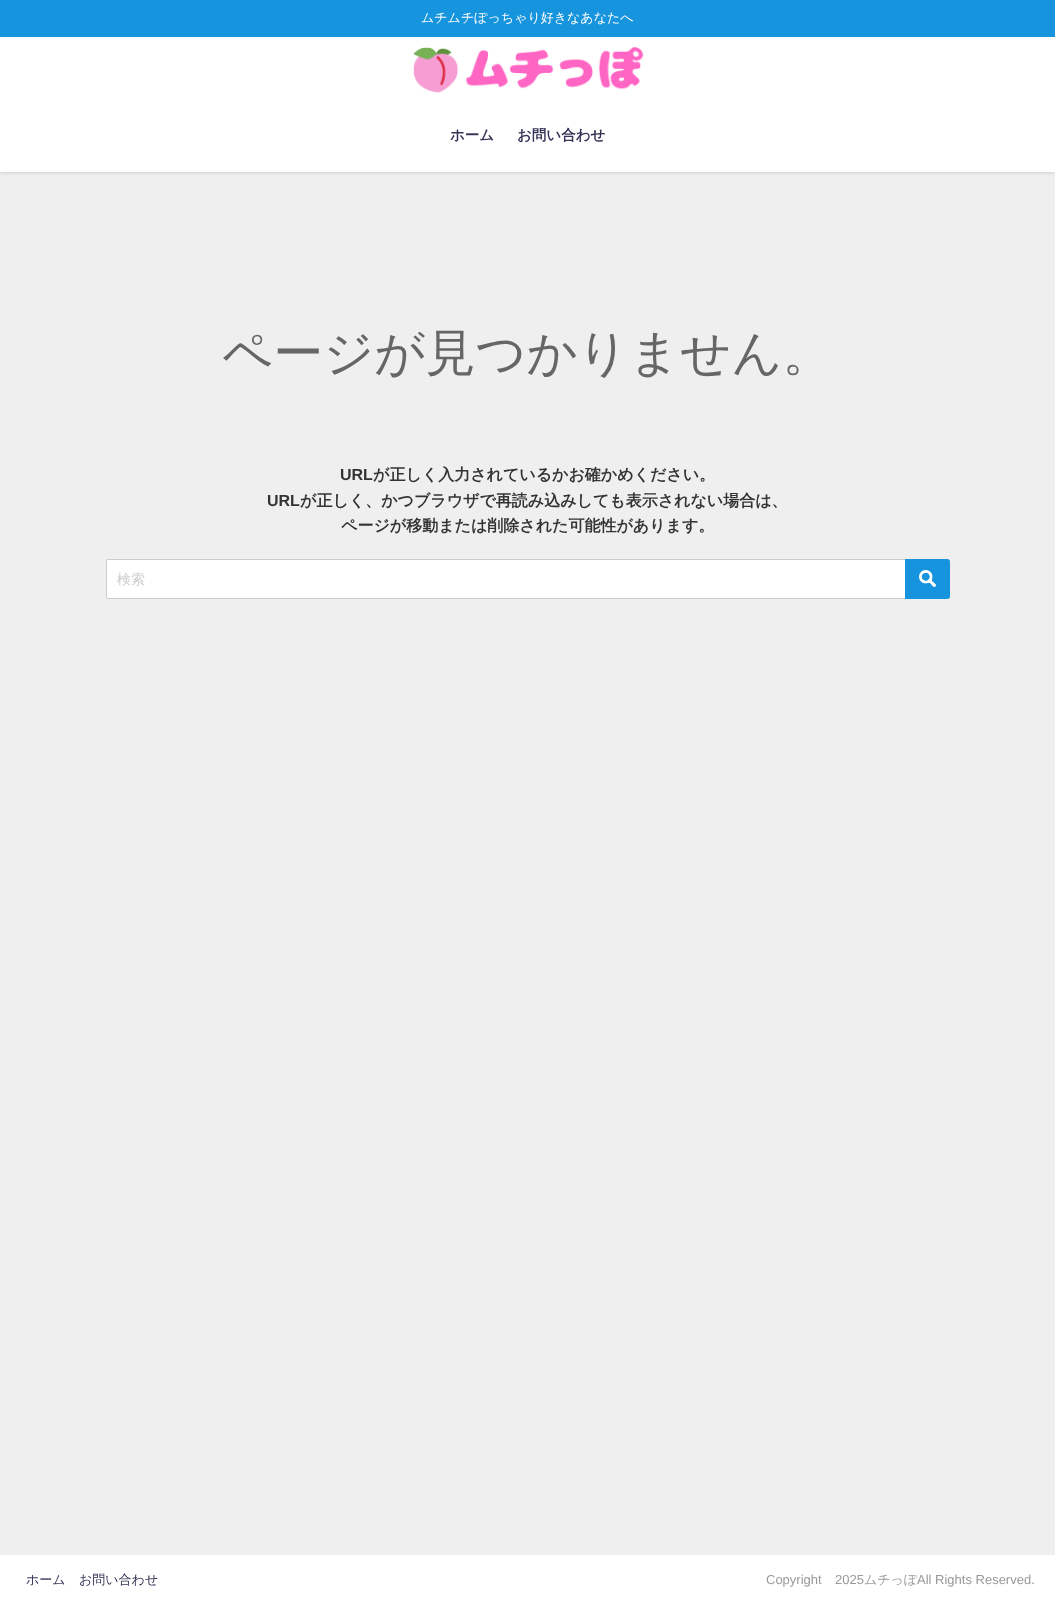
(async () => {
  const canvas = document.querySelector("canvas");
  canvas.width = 1055;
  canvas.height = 1606;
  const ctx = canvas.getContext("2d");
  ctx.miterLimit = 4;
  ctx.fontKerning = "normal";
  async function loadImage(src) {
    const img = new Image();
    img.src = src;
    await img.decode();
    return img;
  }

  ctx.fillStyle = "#efefef";
  ctx.fillRect(0, 0, 1055, 1606);
  ctx.fillStyle = "rgba(0, 0, 0, 0.2)";
  ctx.filter = "blur(2px)";
  ctx.beginPath();
  ctx.rect(0, 0, 1055, 172);
  ctx.fill();
  ctx.filter = "none";
  ctx.fillStyle = "#ffffff";
  ctx.fillRect(0, 37, 1055, 135);
  ctx.fillStyle = "#1694dd";
  ctx.fillRect(0, 0, 1055, 37);
  ctx.drawImage(await loadImage("img/1.png"), 413, 47, 231, 46);
  ctx.fillStyle = "#ffffff";
  ctx.beginPath();
  ctx.roundRect(106.5, 559.5, 843, 39, 1.5);
  ctx.fill();
  ctx.strokeStyle = "#cccccc";
  ctx.stroke();
  ctx.fillStyle = "#1694dd";
  ctx.beginPath();
  ctx.roundRect(905, 559, 45, 40, [0, 3, 3, 0]);
  ctx.fill();
  ctx.drawImage(await loadImage("img/2.png"), 919, 570, 17, 17);
  ctx.fillStyle = "#ffffff";
  ctx.fillRect(0, 1555, 1055, 51);
  ctx.font = "500 13px WenQuanYi Zen Hei";
  ctx.fillText("ムチムチぽっちゃり好きなあなたへ", 421, 22);
  ctx.font = "bold 14.5px WenQuanYi Zen Hei";
  ctx.fillStyle = "#333355";
  ctx.fillText("ホーム", 450, 140);
  ctx.fillText("お問い合わせ", 517, 140);
  ctx.font = "500 50px WenQuanYi Zen Hei";
  ctx.fillStyle = "#666666";
  ctx.fillText("ページが見つかりません。", 222, 370);
  ctx.font = "bold 16px Liberation Sans";
  ctx.fillStyle = "#333333";
  ctx.fillText("URL", 340, 480);
  ctx.font = "bold 16px WenQuanYi Zen Hei";
  ctx.fillText("が正しく入力されているかお確かめください。", 373, 480);
  ctx.font = "bold 16px Liberation Sans";
  ctx.fillText("URL", 267, 506);
  ctx.font = "bold 16px WenQuanYi Zen Hei";
  ctx.fillText("が正しく、かつブラウザで再読み込みしても表示されない場合は、", 300, 506);
  ctx.fillText("ページが移動または削除された可能性があります。", 341, 531);
  ctx.font = "500 14px WenQuanYi Zen Hei";
  ctx.fillStyle = "#cccccc";
  ctx.fillText("検索", 117, 584);
  ctx.font = "500 13px WenQuanYi Zen Hei";
  ctx.fillStyle = "#333355";
  ctx.fillText("ホーム", 26, 1584);
  ctx.fillText("お問い合わせ", 79, 1584);
  ctx.font = "13px Liberation Sans";
  ctx.fillStyle = "#999999";
  ctx.fillText("Copyright", 766, 1584);
  ctx.fillText("2025", 835, 1584);
  ctx.font = "500 13px WenQuanYi Zen Hei";
  ctx.fillText("ムチっぽ", 864, 1584);
  ctx.font = "13px Liberation Sans";
  ctx.fillText("All Rights Reserved.", 917, 1584);
})();
